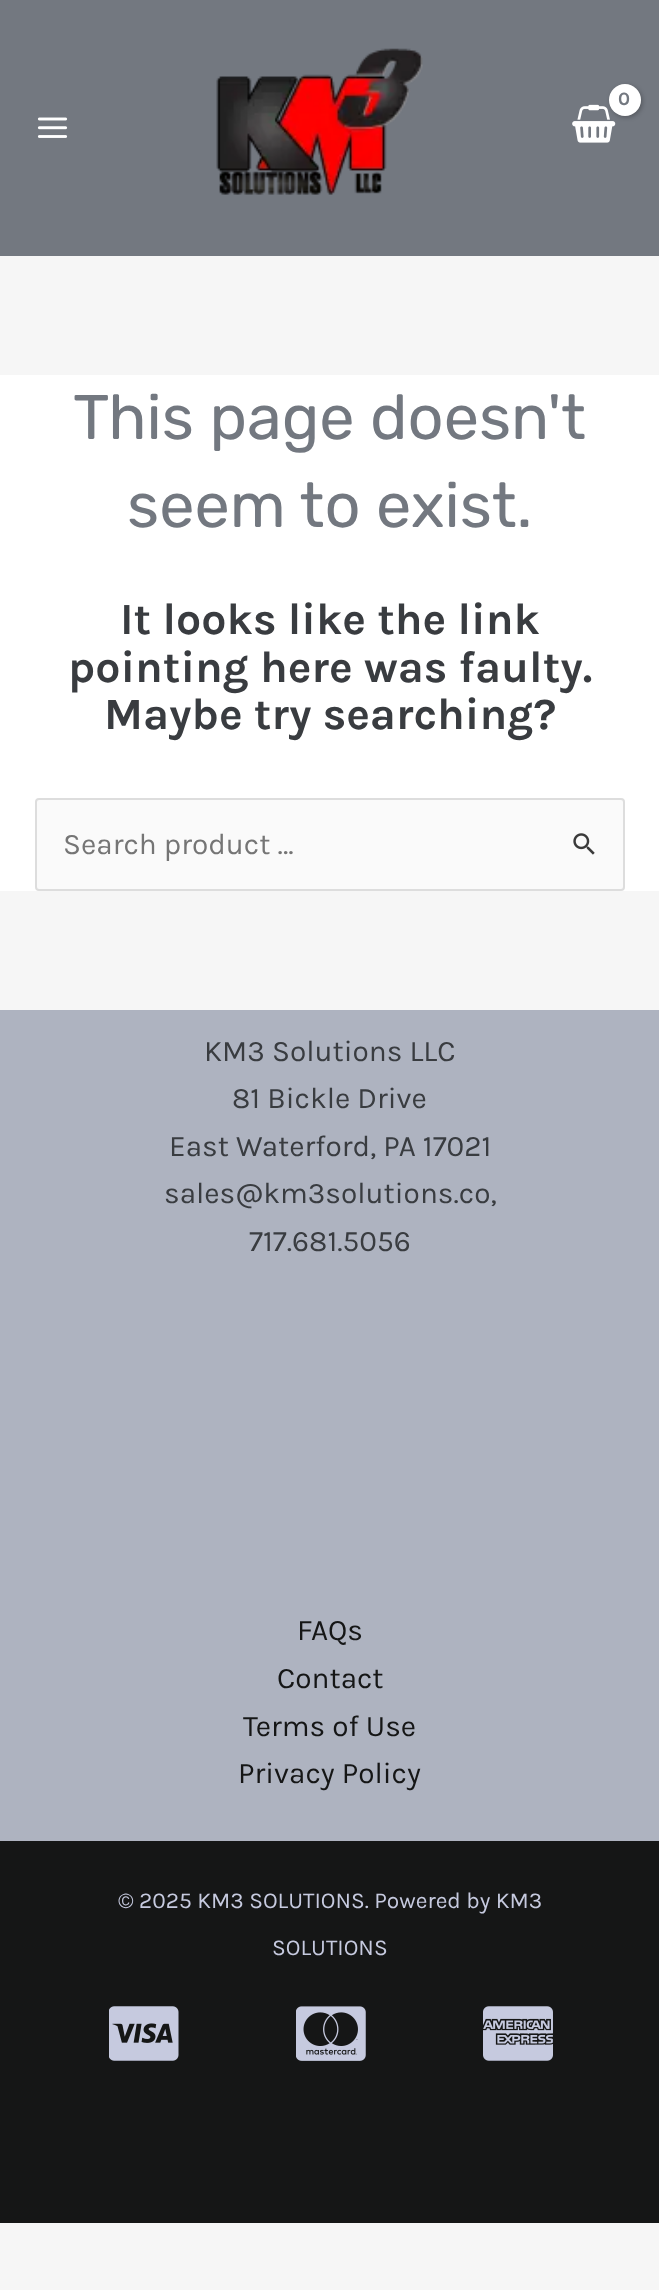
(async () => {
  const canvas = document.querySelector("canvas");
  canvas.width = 659;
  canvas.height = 2290;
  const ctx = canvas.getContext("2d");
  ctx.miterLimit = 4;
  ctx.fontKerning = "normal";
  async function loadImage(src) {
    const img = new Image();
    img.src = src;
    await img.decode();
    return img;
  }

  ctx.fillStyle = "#f6f6f6";
  ctx.fillRect(0, 0, 659, 2290);
  ctx.fillStyle = "#737880";
  ctx.fillRect(0, 0, 659, 256);
  ctx.drawImage(await loadImage("img/1.png"), 37, 117, 31, 21);
  ctx.drawImage(await loadImage("img/2.png"), 216, 48, 207, 147);
  ctx.drawImage(await loadImage("img/3.png"), 572, 104, 44, 39);
  ctx.fillStyle = "rgba(0, 0, 0, 0.3)";
  ctx.filter = "blur(2.5px)";
  ctx.beginPath();
  ctx.roundRect(611, 86, 31, 31, 15.5);
  ctx.fill();
  ctx.filter = "none";
  ctx.fillStyle = "#ffffff";
  ctx.beginPath();
  ctx.arc(625, 100, 16, 0, Math.PI * 2);
  ctx.fill();
  ctx.fillRect(0, 375, 659, 516);
  ctx.fillStyle = "#fafafa";
  ctx.beginPath();
  ctx.roundRect(36, 799, 588, 91, 3);
  ctx.fill();
  ctx.strokeStyle = "#dddddd";
  ctx.lineWidth = 2;
  ctx.stroke();
  ctx.drawImage(await loadImage("img/4.png"), 573, 833, 22, 22);
  ctx.fillStyle = "#151616";
  ctx.fillRect(0, 1841, 659, 382);
  ctx.fillStyle = "#aeb3c0";
  ctx.fillRect(0, 1010, 659, 831);
  ctx.drawImage(await loadImage("img/5.png"), 109, 2006, 70, 55);
  ctx.drawImage(await loadImage("img/6.png"), 296, 2006, 70, 55);
  ctx.drawImage(await loadImage("img/7.png"), 483, 2006, 70, 55);
  ctx.letterSpacing = "-1px";
  ctx.font = "bold 19px Karla";
  ctx.fillStyle = "#737880";
  ctx.fillText("0", 618, 105);
  ctx.letterSpacing = "0px";
  ctx.font = "63px Rubik";
  ctx.fillText("This page doesn't", 73, 439);
  ctx.fillText("seem to exist.", 127, 527);
  ctx.font = "bold 44.6px Karla";
  ctx.fillStyle = "#393c40";
  for (const [text, x, y] of [
    ["It looks like the link", 120, 634],
    ["pointing here was faulty.", 68, 682],
    ["Maybe try searching?", 104, 729],
  ]) {
    ctx.fillText(text, x, y);
  }
  ctx.font = "29.75px Karla";
  ctx.fillStyle = "#757575";
  ctx.fillText("Search product …", 63, 854);
  ctx.fillStyle = "#393c40";
  for (const [text, x, y] of [
    ["KM3 Solutions LLC", 204, 1061],
    ["81 Bickle Drive", 232, 1108],
    ["East Waterford, PA 17021", 169, 1156],
    ["sales@km3solutions.co,", 164, 1203],
    ["717.681.5056", 249, 1251],
  ]) {
    ctx.fillText(text, x, y);
  }
  ctx.fillStyle = "#151616";
  for (const [text, x, y] of [
    ["FAQs", 297, 1640],
    ["Contact", 277, 1688],
    ["Terms of Use", 243, 1736],
    ["Privacy Policy", 238, 1783],
  ]) {
    ctx.fillText(text, x, y);
  }
  ctx.font = "22.75px Karla";
  ctx.fillStyle = "#c6cadf";
  ctx.fillText("© 2025 KM3 SOLUTIONS. Powered by KM3", 118, 1908);
  ctx.fillText("SOLUTIONS", 272, 1955);
})();
